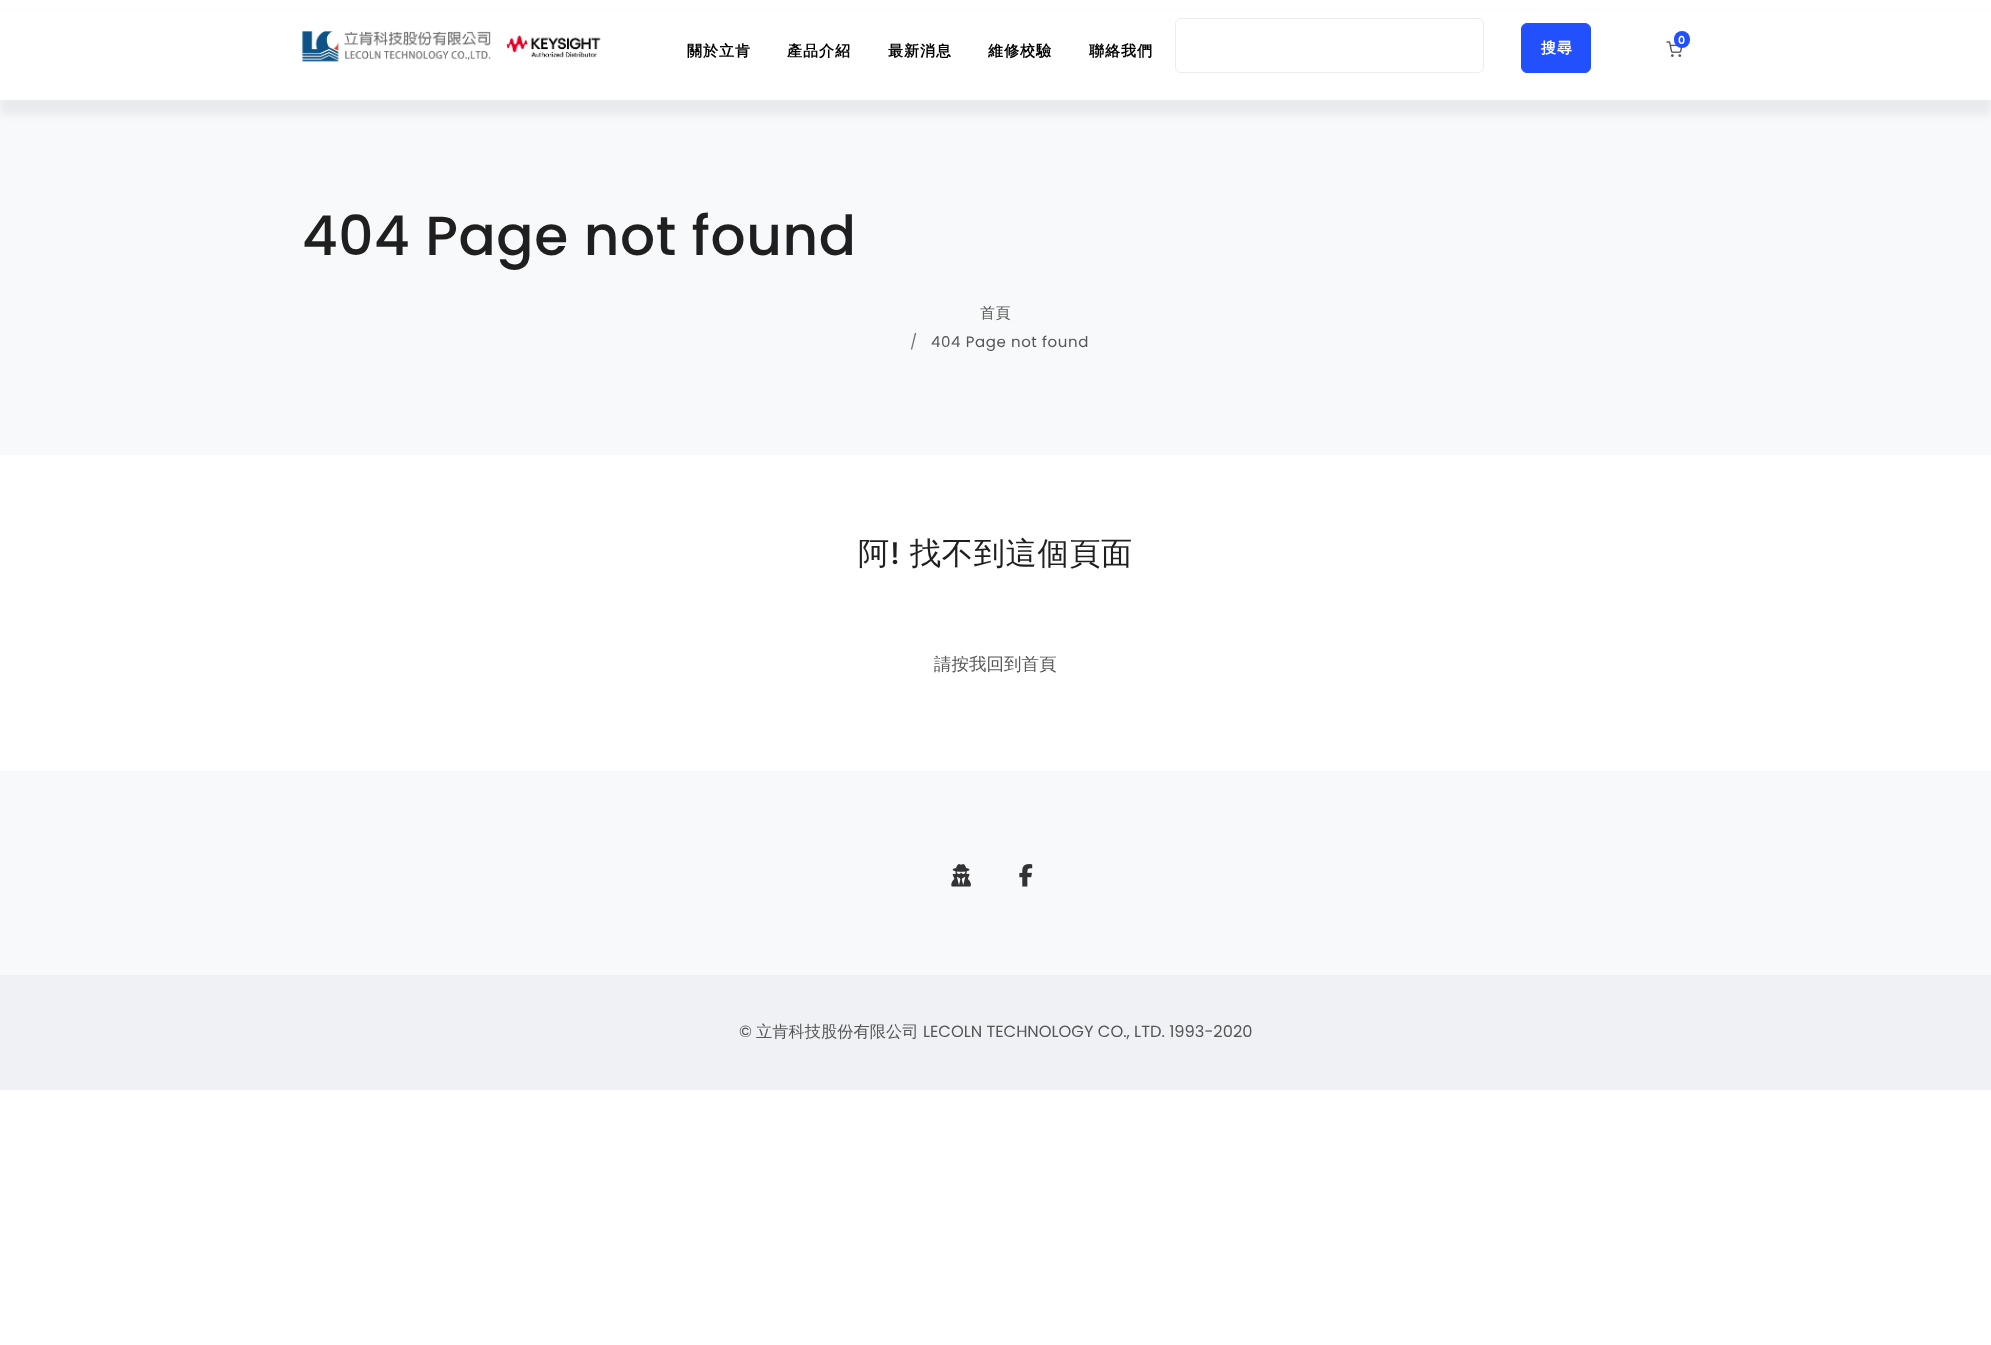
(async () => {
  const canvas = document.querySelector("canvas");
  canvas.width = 1991;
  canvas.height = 1345;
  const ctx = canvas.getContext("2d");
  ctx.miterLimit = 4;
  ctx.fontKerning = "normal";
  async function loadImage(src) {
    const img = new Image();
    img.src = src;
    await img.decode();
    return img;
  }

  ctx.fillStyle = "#ffffff";
  ctx.fillRect(0, 0, 1991, 1345);
  ctx.fillStyle = "#f8f9fa";
  ctx.fillRect(0, 100, 1991, 355);
  ctx.fillStyle = "rgba(0, 0, 0, 0.06)";
  ctx.filter = "blur(4px)";
  ctx.beginPath();
  ctx.rect(0, 15, 1991, 100);
  ctx.fill();
  ctx.filter = "none";
  ctx.fillStyle = "#ffffff";
  ctx.fillRect(0, 11, 1991, 89);
  ctx.drawImage(await loadImage("img/1.png"), 302, 31, 299, 31);
  ctx.beginPath();
  ctx.roundRect(1175.5, 18.5, 308, 54, 5.5);
  ctx.strokeStyle = "#ececec";
  ctx.stroke();
  ctx.fillStyle = "#2250fc";
  ctx.beginPath();
  ctx.roundRect(1521.5, 23.5, 69, 49, 5.5);
  ctx.fill();
  ctx.strokeStyle = "#2250fc";
  ctx.stroke();
  ctx.drawImage(await loadImage("img/2.png"), 1666, 41, 17, 16);
  ctx.beginPath();
  ctx.roundRect(1674, 31, 16, 17, 8);
  ctx.fill();
  ctx.fillStyle = "#f8f9fa";
  ctx.fillRect(0, 771, 1991, 204);
  ctx.drawImage(await loadImage("img/3.png"), 951, 864, 20, 23);
  ctx.drawImage(await loadImage("img/4.png"), 1019, 864, 14, 23);
  ctx.fillStyle = "#eff1f4";
  ctx.fillRect(0, 975, 1991, 115);
  ctx.letterSpacing = "1px";
  ctx.font = "bold 15px WenQuanYi Zen Hei";
  ctx.fillStyle = "#000000";
  for (const [text, x, y] of [
    ["關於立肯", 687, 56],
    ["產品介紹", 787, 56],
    ["最新消息", 888, 56],
    ["維修校驗", 988, 56],
    ["聯絡我們", 1089, 56],
  ]) {
    ctx.fillText(text, x, y);
  }
  ctx.fillStyle = "#ffffff";
  ctx.fillText("搜尋", 1541, 53);
  ctx.letterSpacing = "0px";
  ctx.font = "600 11px Poppins";
  ctx.fillText("0", 1678, 44);
  ctx.letterSpacing = "0.6px";
  ctx.font = "500 55px Poppins";
  ctx.fillStyle = "#1f1f1f";
  ctx.fillText("404 Page not found", 302, 255);
  ctx.font = "500 15px WenQuanYi Zen Hei";
  ctx.fillStyle = "#565656";
  ctx.fillText("首頁", 980, 318);
  ctx.font = "15px Poppins";
  ctx.fillStyle = "#6c757d";
  ctx.fillText("/", 910, 347);
  ctx.fillStyle = "#565656";
  ctx.fillText("404 Page not found", 931, 347);
  ctx.font = "500 31.25px WenQuanYi Zen Hei";
  ctx.fillStyle = "#1f1f1f";
  ctx.fillText("阿", 858, 564);
  ctx.font = "500 31.25px Poppins";
  ctx.fillText("!", 890, 564);
  ctx.font = "500 31.25px WenQuanYi Zen Hei";
  ctx.fillText("找不到這個頁面", 910, 564);
  ctx.letterSpacing = "0px";
  ctx.font = "500 17.5px WenQuanYi Zen Hei";
  ctx.fillStyle = "#565656";
  ctx.fillText("請按我回到首頁", 934, 670);
  ctx.font = "16.25px Poppins";
  ctx.fillText("©", 739, 1037);
  ctx.font = "500 16.25px WenQuanYi Zen Hei";
  ctx.fillText("立肯科技股份有限公司", 756, 1037);
  ctx.font = "16.25px Poppins";
  ctx.fillText("LECOLN TECHNOLOGY CO., LTD. 1993-2020", 923, 1037);
})();
